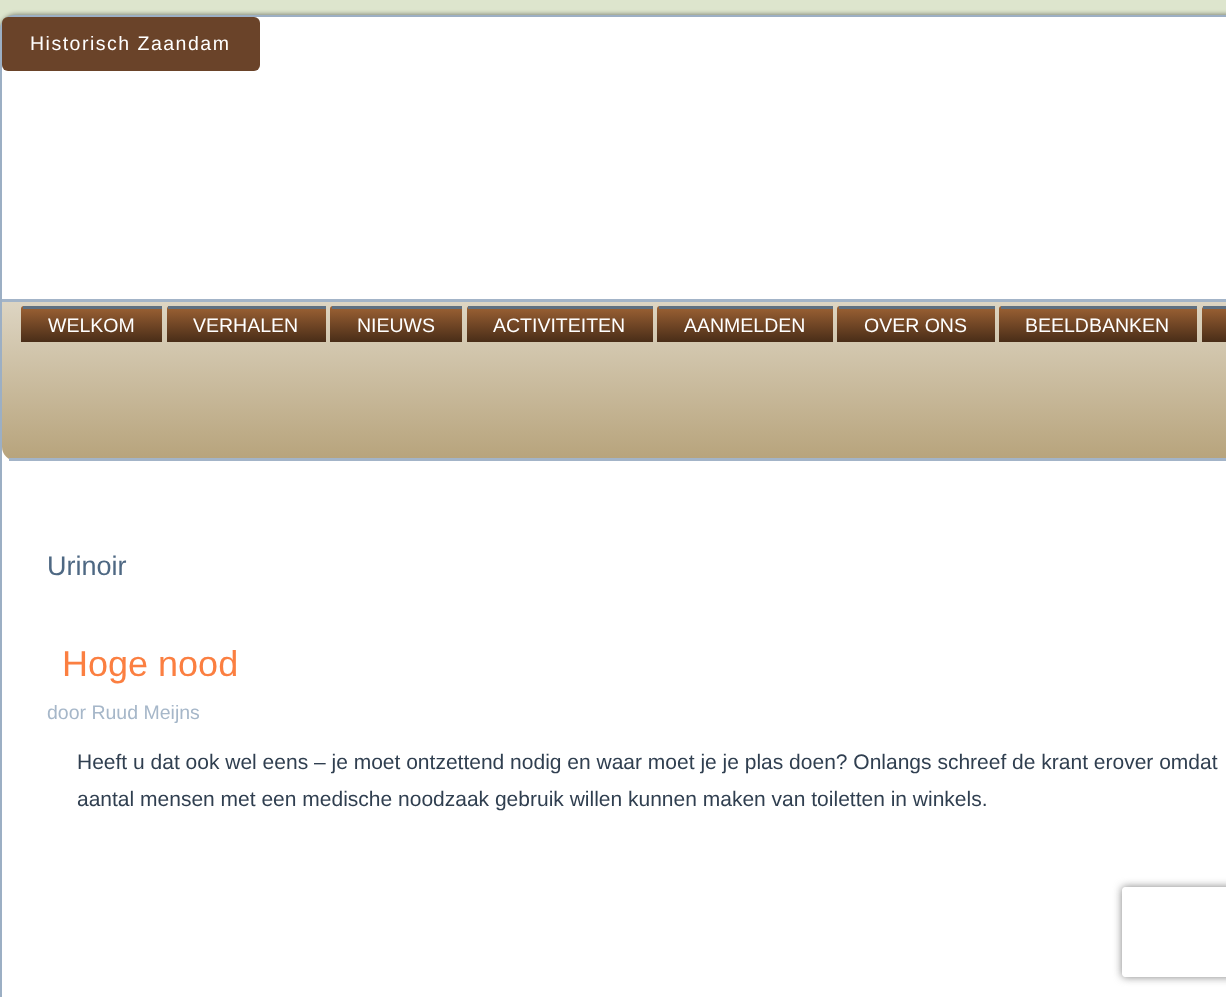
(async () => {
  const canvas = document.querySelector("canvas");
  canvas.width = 1226;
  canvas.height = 997;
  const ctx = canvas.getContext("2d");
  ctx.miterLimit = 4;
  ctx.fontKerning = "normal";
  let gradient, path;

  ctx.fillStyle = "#dde5cd";
  ctx.fillRect(0, 0, 1226, 997);
  ctx.fillStyle = "rgba(0, 0, 0, 0.4)";
  ctx.filter = "blur(2px)";
  ctx.beginPath();
  ctx.roundRect(-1, 14, 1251, 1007, 18);
  ctx.fill();
  ctx.filter = "none";
  ctx.fillStyle = "#ffffff";
  ctx.beginPath();
  ctx.roundRect(1, 16, 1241, 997, 14);
  ctx.fill();
  ctx.strokeStyle = "#9cafc4";
  ctx.lineWidth = 2;
  ctx.stroke();
  ctx.fillStyle = "#6a4329";
  ctx.beginPath();
  ctx.roundRect(2, 17, 258, 54, 6);
  ctx.fill();
  gradient = ctx.createLinearGradient(675, 298, 675, 461);
  gradient.addColorStop(0, "#ded6c4");
  gradient.addColorStop(1, "#b7a37b");
  ctx.fillStyle = gradient;
  path = new Path2D("M2 299H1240V447C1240 454.5 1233.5 461 1226 461H16C8.5 461 2 454.5 2 447Z");
  ctx.fill(path);
  ctx.fillStyle = "#a3b4c8";
  ctx.fillRect(2, 299, 1224, 3);
  ctx.fillRect(9, 458, 1217, 3);
  gradient = ctx.createLinearGradient(92, 306, 92, 342);
  gradient.addColorStop(0, "#9d6234");
  gradient.addColorStop(1, "#492d18");
  ctx.fillStyle = gradient;
  ctx.beginPath();
  ctx.roundRect(21, 306, 141, 36, [3, 0, 0, 0]);
  ctx.fill();
  ctx.fillStyle = "#5f7081";
  ctx.fillRect(23, 306, 139, 3);
  gradient = ctx.createLinearGradient(246, 306, 246, 342);
  gradient.addColorStop(0, "#9d6234");
  gradient.addColorStop(1, "#492d18");
  ctx.fillStyle = gradient;
  ctx.beginPath();
  ctx.roundRect(167, 306, 159, 36, [3, 0, 0, 0]);
  ctx.fill();
  ctx.fillStyle = "#5f7081";
  ctx.fillRect(168, 306, 158, 3);
  gradient = ctx.createLinearGradient(396, 306, 396, 342);
  gradient.addColorStop(0, "#9d6234");
  gradient.addColorStop(1, "#492d18");
  ctx.fillStyle = gradient;
  ctx.beginPath();
  ctx.roundRect(330, 306, 132, 36, [3, 0, 0, 0]);
  ctx.fill();
  ctx.fillStyle = "#5f7081";
  ctx.fillRect(332, 306, 130, 3);
  gradient = ctx.createLinearGradient(560, 306, 560, 342);
  gradient.addColorStop(0, "#9d6234");
  gradient.addColorStop(1, "#492d18");
  ctx.fillStyle = gradient;
  ctx.beginPath();
  ctx.roundRect(467, 306, 186, 36, [3, 0, 0, 0]);
  ctx.fill();
  ctx.fillStyle = "#5f7081";
  ctx.fillRect(468, 306, 185, 3);
  gradient = ctx.createLinearGradient(745, 306, 745, 342);
  gradient.addColorStop(0, "#9d6234");
  gradient.addColorStop(1, "#492d18");
  ctx.fillStyle = gradient;
  ctx.beginPath();
  ctx.roundRect(657, 306, 176, 36, [3, 0, 0, 0]);
  ctx.fill();
  ctx.fillStyle = "#5f7081";
  ctx.fillRect(659, 306, 174, 3);
  gradient = ctx.createLinearGradient(916, 306, 916, 342);
  gradient.addColorStop(0, "#9d6234");
  gradient.addColorStop(1, "#492d18");
  ctx.fillStyle = gradient;
  ctx.beginPath();
  ctx.roundRect(837, 306, 158, 36, [3, 0, 0, 0]);
  ctx.fill();
  ctx.fillStyle = "#5f7081";
  ctx.fillRect(839, 306, 156, 3);
  gradient = ctx.createLinearGradient(1098, 306, 1098, 342);
  gradient.addColorStop(0, "#9d6234");
  gradient.addColorStop(1, "#492d18");
  ctx.fillStyle = gradient;
  ctx.beginPath();
  ctx.roundRect(999, 306, 198, 36, [3, 0, 0, 0]);
  ctx.fill();
  ctx.fillStyle = "#5f7081";
  ctx.fillRect(1001, 306, 196, 3);
  gradient = ctx.createLinearGradient(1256, 306, 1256, 342);
  gradient.addColorStop(0, "#9d6234");
  gradient.addColorStop(1, "#492d18");
  ctx.fillStyle = gradient;
  path = new Path2D("M1205 306H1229V342H1202V309C1202 307.5 1203.5 306 1205 306Z");
  ctx.fill(path);
  ctx.fillStyle = "#5f7081";
  ctx.fillRect(1203, 306, 23, 3);
  ctx.save();
  path = new Path2D("M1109 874H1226V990H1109ZM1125 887H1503C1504.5 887 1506 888.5 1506 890V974C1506 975.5 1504.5 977 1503 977H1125C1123.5 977 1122 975.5 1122 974V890C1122 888.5 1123.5 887 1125 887Z");
  ctx.clip(path, "evenodd");
  ctx.fillStyle = "#808080";
  ctx.filter = "blur(4px)";
  ctx.beginPath();
  ctx.roundRect(1122, 887, 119, 90, 3);
  ctx.fill();
  ctx.filter = "none";
  ctx.restore();
  ctx.letterSpacing = "1.5px";
  ctx.font = "19.5px Liberation Sans";
  ctx.fillStyle = "#ffffff";
  ctx.fillText("Historisch Zaandam", 30, 50);
  ctx.letterSpacing = "0px";
  for (const [text, x, y] of [
    ["WELKOM", 48, 332],
    ["VERHALEN", 193, 332],
    ["NIEUWS", 357, 332],
    ["ACTIVITEITEN", 493, 332],
    ["AANMELDEN", 684, 332],
    ["OVER ONS", 864, 332],
    ["BEELDBANKEN", 1025, 332],
  ]) {
    ctx.fillText(text, x, y);
  }
  ctx.font = "27px Liberation Sans";
  ctx.fillStyle = "#4e6883";
  ctx.fillText("Urinoir", 47, 575);
  ctx.font = "36px Liberation Sans";
  ctx.fillStyle = "#fb7f41";
  ctx.fillText("Hoge nood", 62, 676);
  ctx.font = "19.5px Liberation Sans";
  ctx.fillStyle = "#a6b7c9";
  ctx.fillText("door Ruud Meijns", 47, 719);
  ctx.font = "21px Liberation Sans";
  ctx.fillStyle = "#303f50";
  ctx.fillText("Heeft u dat ook wel eens – je moet ontzettend nodig en waar moet je je plas doen? Onlangs schreef de krant erover omdat", 77, 769);
  ctx.fillText("aantal mensen met een medische noodzaak gebruik willen kunnen maken van toiletten in winkels.", 77, 806);
})();
